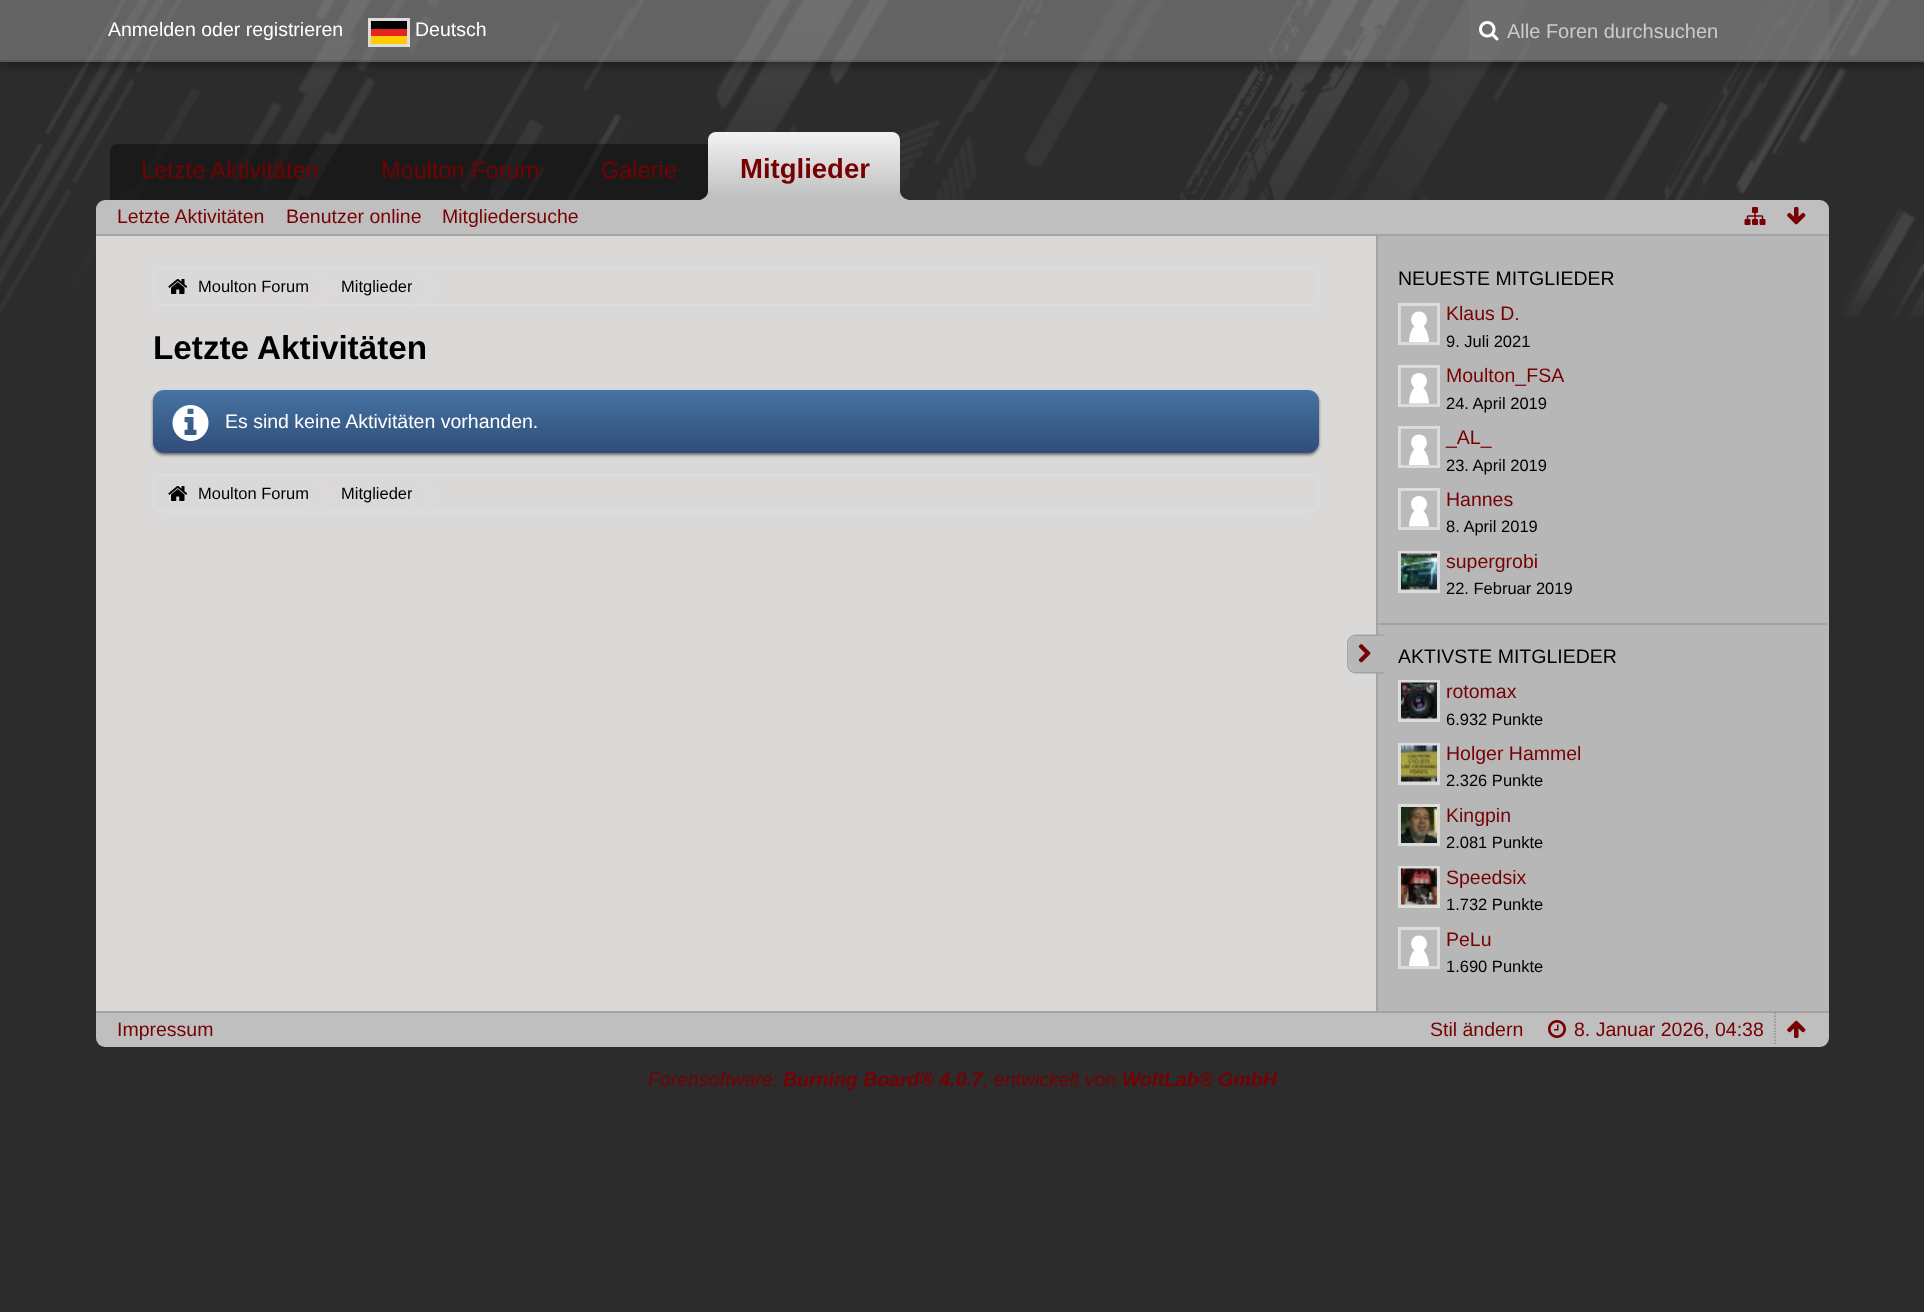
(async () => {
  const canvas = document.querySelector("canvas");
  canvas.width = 1924;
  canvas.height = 1312;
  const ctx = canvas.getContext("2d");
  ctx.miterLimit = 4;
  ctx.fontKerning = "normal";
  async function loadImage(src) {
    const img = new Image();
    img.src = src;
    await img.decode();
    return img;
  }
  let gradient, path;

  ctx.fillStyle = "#2c2c2c";
  ctx.fillRect(0, 0, 1924, 1312);
  ctx.drawImage(await loadImage("img/1.png"), 0, 0, 1924, 317);
  ctx.save();
  path = new Path2D("M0 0H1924V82H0ZM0 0H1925V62H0Z");
  ctx.clip(path, "evenodd");
  ctx.fillStyle = "rgba(0, 0, 0, 0.3)";
  ctx.filter = "blur(5px)";
  ctx.beginPath();
  ctx.rect(0, 5, 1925, 61);
  ctx.fill();
  ctx.filter = "none";
  ctx.restore();
  ctx.fillStyle = "rgba(155, 154, 154, 0.5)";
  ctx.fillRect(0, 0, 1924, 62);
  ctx.fillStyle = "rgba(0, 0, 0, 0.1)";
  ctx.fillRect(0, 60, 1924, 2);
  ctx.fillStyle = "#dbd8d8";
  ctx.beginPath();
  ctx.rect(369, 19, 40, 27);
  ctx.fill();
  ctx.strokeStyle = "#dddddd";
  ctx.lineWidth = 2;
  ctx.stroke();
  for (const [x, y, w, h, color] of [
    [371, 21, 36, 8, "#010202"],
    [371, 29, 36, 7, "#e52420"],
    [371, 36, 36, 8, "#ffcc04"],
    [1469, 0, 360, 60, "rgba(117, 117, 117, 0.4)"],
  ]) {
    ctx.fillStyle = color;
    ctx.fillRect(x, y, w, h);
  }
  ctx.drawImage(await loadImage("img/2.png"), 1479, 21, 20, 20);
  ctx.drawImage(await loadImage("img/3.png"), 96, 99, 2, 2);
  ctx.fillStyle = "rgba(0, 0, 0, 0.4)";
  ctx.beginPath();
  ctx.roundRect(110, 144, 790, 56, [8, 8, 0, 0]);
  ctx.fill();
  gradient = ctx.createLinearGradient(804, 132, 804, 200);
  gradient.addColorStop(0, "#f2f2f2");
  gradient.addColorStop(1, "#bfbfbf");
  ctx.fillStyle = gradient;
  ctx.beginPath();
  ctx.roundRect(708, 132, 192, 68, [8, 8, 0, 0]);
  ctx.fill();
  ctx.fillStyle = "#bfbfbf";
  ctx.beginPath();
  ctx.roundRect(96, 200, 1733, 36, [9, 9, 0, 0]);
  ctx.fill();
  path = new Path2D("M701 199.5V203C708.5 203 711 198.5 711 192H708C707.5 195.5 704.5 198.5 701 199.5Z");
  ctx.fill(path);
  path = new Path2D("M897 192C897 199.5 900.5 203 908 203V199.5C904 199 901 196 900 192Z");
  ctx.fill(path);
  ctx.fillStyle = "#a3a3a3";
  ctx.fillRect(96, 234, 1733, 2);
  ctx.drawImage(await loadImage("img/4.png"), 1744, 207, 22, 18);
  ctx.drawImage(await loadImage("img/5.png"), 1787, 207, 19, 18);
  ctx.fillStyle = "#b7b7b7";
  ctx.fillRect(1378, 236, 451, 775);
  ctx.fillStyle = "#dbd8d8";
  ctx.fillRect(96, 236, 1280, 775);
  ctx.beginPath();
  ctx.roundRect(154, 268, 1164, 37, 8);
  ctx.stroke();
  ctx.drawImage(await loadImage("img/6.png"), 168, 279, 20, 15);
  ctx.fillStyle = "#dddddd";
  path = new Path2D("M315 269L333 286L314 305H310V269Z");
  ctx.fill(path);
  ctx.fillStyle = "#dbd8d8";
  path = new Path2D("M314 269L332 286L313 305H309V269Z");
  ctx.fill(path);
  ctx.fillStyle = "#dddddd";
  path = new Path2D("M419 269L436 286L418 305H414V269Z");
  ctx.fill(path);
  ctx.fillStyle = "rgba(0, 0, 0, 0.5)";
  ctx.filter = "blur(1.5px)";
  ctx.beginPath();
  ctx.roundRect(153, 392, 1166, 63, 11);
  ctx.fill();
  ctx.filter = "none";
  gradient = ctx.createLinearGradient(736, 390, 736, 453);
  gradient.addColorStop(0, "#4674a4");
  gradient.addColorStop(1, "#304d77");
  ctx.fillStyle = gradient;
  ctx.beginPath();
  ctx.roundRect(153, 390, 1166, 63, 11);
  ctx.fill();
  ctx.drawImage(await loadImage("img/7.png"), 172, 405, 37, 36);
  ctx.beginPath();
  ctx.roundRect(154, 475, 1164, 37, 8);
  ctx.stroke();
  ctx.drawImage(await loadImage("img/6.png"), 168, 486, 20, 15);
  ctx.fillStyle = "#dddddd";
  path = new Path2D("M315 476L333 494L314 512H310V476Z");
  ctx.fill(path);
  ctx.fillStyle = "#dbd8d8";
  path = new Path2D("M314 476L332 494L313 512H309V476Z");
  ctx.fill(path);
  ctx.fillStyle = "#dddddd";
  path = new Path2D("M419 476L436 494L418 512H414V476Z");
  ctx.fill(path);
  ctx.fillStyle = "#a3a3a3";
  ctx.fillRect(1376, 236, 2, 775);
  ctx.fillStyle = "#b7b7b7";
  ctx.beginPath();
  ctx.roundRect(1349, 636, 36, 36, [8, 0, 0, 8]);
  ctx.fill();
  ctx.fillStyle = "#a3a3a3";
  path = new Path2D("M1356 634.5H1384.5V673.5H1356C1351 673.5 1347 669.5 1347 664.5V643.5C1347 638.5 1351 634.5 1356 634.5ZM1356 636H1384.5V672H1356C1352 672 1348.5 668.5 1348.5 664.5V643.5C1348.5 639.5 1352 636 1356 636Z");
  ctx.fill(path, "evenodd");
  ctx.drawImage(await loadImage("img/8.png"), 1358, 644, 13, 19);
  ctx.fillRect(1377, 623, 450, 2);
  ctx.fillStyle = "#dbd8d8";
  ctx.beginPath();
  ctx.rect(1399, 304, 40, 40);
  ctx.fill();
  ctx.stroke();
  ctx.fillStyle = "#bbbbbb";
  ctx.fillRect(1401, 306, 36, 36);
  ctx.fillStyle = "#ffffff";
  path = new Path2D("M1409 342C1410 318.5 1427.5 318 1429 342");
  ctx.fill(path);
  ctx.beginPath();
  ctx.arc(1419, 319.5, 8, 0, Math.PI * 2);
  ctx.fill();
  ctx.fillStyle = "#dbd8d8";
  ctx.beginPath();
  ctx.rect(1399, 366, 40, 40);
  ctx.fill();
  ctx.stroke();
  ctx.fillStyle = "#bbbbbb";
  ctx.fillRect(1401, 368, 36, 36);
  ctx.fillStyle = "#ffffff";
  path = new Path2D("M1409 403.5C1410 380 1427.5 379.5 1429 403.5");
  ctx.fill(path);
  ctx.beginPath();
  ctx.arc(1419, 381, 8, 0, Math.PI * 2);
  ctx.fill();
  ctx.fillStyle = "#dbd8d8";
  ctx.beginPath();
  ctx.rect(1399, 427, 40, 40);
  ctx.fill();
  ctx.stroke();
  ctx.fillStyle = "#bbbbbb";
  ctx.fillRect(1401, 429, 36, 36);
  ctx.fillStyle = "#ffffff";
  path = new Path2D("M1409 465C1410 441.5 1427.5 441 1429 465");
  ctx.fill(path);
  ctx.beginPath();
  ctx.arc(1419, 442.5, 8, 0, Math.PI * 2);
  ctx.fill();
  ctx.fillStyle = "#dbd8d8";
  ctx.beginPath();
  ctx.rect(1399, 489, 40, 40);
  ctx.fill();
  ctx.stroke();
  ctx.fillStyle = "#bbbbbb";
  ctx.fillRect(1401, 491, 36, 36);
  ctx.fillStyle = "#ffffff";
  path = new Path2D("M1409 526.5C1410 503 1427.5 502.5 1429 526.5");
  ctx.fill(path);
  ctx.beginPath();
  ctx.arc(1419, 504, 8, 0, Math.PI * 2);
  ctx.fill();
  ctx.fillStyle = "#dbd8d8";
  ctx.beginPath();
  ctx.rect(1399, 552, 40, 40);
  ctx.fill();
  ctx.stroke();
  ctx.drawImage(await loadImage("img/9.png"), 1401, 553, 36, 37);
  ctx.beginPath();
  ctx.rect(1399, 681, 40, 40);
  ctx.fill();
  ctx.stroke();
  ctx.drawImage(await loadImage("img/10.png"), 1401, 682, 36, 37);
  ctx.beginPath();
  ctx.rect(1399, 744, 40, 40);
  ctx.fill();
  ctx.stroke();
  ctx.drawImage(await loadImage("img/11.png"), 1401, 745, 36, 37);
  ctx.beginPath();
  ctx.rect(1399, 805, 40, 40);
  ctx.fill();
  ctx.stroke();
  ctx.drawImage(await loadImage("img/12.png"), 1401, 807, 36, 36);
  ctx.beginPath();
  ctx.rect(1399, 867, 40, 40);
  ctx.fill();
  ctx.stroke();
  ctx.drawImage(await loadImage("img/13.png"), 1401, 868, 36, 37);
  ctx.beginPath();
  ctx.rect(1399, 928, 40, 40);
  ctx.fill();
  ctx.stroke();
  ctx.fillStyle = "#bbbbbb";
  ctx.fillRect(1401, 930, 36, 36);
  ctx.fillStyle = "#ffffff";
  path = new Path2D("M1409 966C1410 942.5 1427.5 942 1429 966");
  ctx.fill(path);
  ctx.beginPath();
  ctx.arc(1419, 943.5, 8, 0, Math.PI * 2);
  ctx.fill();
  ctx.fillStyle = "#bfbfbf";
  ctx.beginPath();
  ctx.roundRect(96, 1011, 1733, 36, [0, 0, 9, 9]);
  ctx.fill();
  ctx.fillStyle = "#a3a3a3";
  ctx.fillRect(96, 1011, 1733, 2);
  path = new Path2D("M1775 1012.5V1045.5");
  ctx.strokeStyle = "#8c8c8c";
  ctx.lineWidth = 1.5;
  ctx.setLineDash([1.5, 1.5]);
  ctx.stroke(path);
  ctx.drawImage(await loadImage("img/14.png"), 1548, 1020, 18, 18);
  ctx.drawImage(await loadImage("img/15.png"), 1787, 1020, 19, 18);
  ctx.font = "19.5px Liberation Sans";
  ctx.fillStyle = "#ffffff";
  ctx.fillText("Anmelden oder registrieren", 108, 36);
  ctx.fillText("Deutsch", 415, 36);
  ctx.font = "20px Liberation Sans";
  ctx.fillStyle = "#cccccc";
  ctx.fillText("Alle Foren durchsuchen", 1507, 38);
  ctx.font = "23.5px Liberation Sans";
  ctx.fillStyle = "#760002";
  for (const [text, x, y] of [
    ["Letzte Aktivitäten", 141, 178],
    ["Moulton Forum", 381, 178],
    ["Galerie", 601, 178],
  ]) {
    ctx.fillText(text, x, y);
  }
  ctx.font = "bold 27.5px Liberation Sans";
  ctx.fillText("Mitglieder", 740, 178);
  ctx.font = "19.5px Liberation Sans";
  for (const [text, x, y] of [
    ["Letzte Aktivitäten", 117, 223],
    ["Benutzer online", 286, 223],
    ["Mitgliedersuche", 442, 223],
  ]) {
    ctx.fillText(text, x, y);
  }
  ctx.font = "16.5px Liberation Sans";
  ctx.fillStyle = "#000000";
  ctx.fillText("Moulton Forum", 198, 292);
  ctx.fillText("Mitglieder", 341, 292);
  ctx.fillStyle = "#dbd8d8";
  path = new Path2D("M417 269L435 286L416 305H412V269Z");
  ctx.fill(path);
  ctx.font = "bold 33.25px Liberation Sans";
  ctx.fillStyle = "#000000";
  ctx.fillText("Letzte Aktivitäten", 153, 359);
  ctx.font = "19.5px Liberation Sans";
  ctx.fillStyle = "#ffffff";
  ctx.fillText("Es sind keine Aktivitäten vorhanden.", 225, 428);
  ctx.font = "16.5px Liberation Sans";
  ctx.fillStyle = "#000000";
  ctx.fillText("Moulton Forum", 198, 499);
  ctx.fillText("Mitglieder", 341, 499);
  ctx.fillStyle = "#dbd8d8";
  path = new Path2D("M417 476L435 494L416 512H412V476Z");
  ctx.fill(path);
  ctx.font = "19.5px Liberation Sans";
  ctx.fillStyle = "#000000";
  ctx.fillText("NEUESTE MITGLIEDER", 1398, 285);
  ctx.fillStyle = "#760002";
  ctx.fillText("Klaus D.", 1446, 320);
  ctx.font = "16.5px Liberation Sans";
  ctx.fillStyle = "#000000";
  ctx.fillText("9. Juli 2021", 1446, 347);
  ctx.font = "19.5px Liberation Sans";
  ctx.fillStyle = "#760002";
  ctx.fillText("Moulton_FSA", 1446, 382);
  ctx.font = "16.5px Liberation Sans";
  ctx.fillStyle = "#000000";
  ctx.fillText("24. April 2019", 1446, 409);
  ctx.font = "19.5px Liberation Sans";
  ctx.fillStyle = "#760002";
  ctx.fillText("_AL_", 1446, 444);
  ctx.font = "16.5px Liberation Sans";
  ctx.fillStyle = "#000000";
  ctx.fillText("23. April 2019", 1446, 471);
  ctx.font = "19.5px Liberation Sans";
  ctx.fillStyle = "#760002";
  ctx.fillText("Hannes", 1446, 506);
  ctx.font = "16.5px Liberation Sans";
  ctx.fillStyle = "#000000";
  ctx.fillText("8. April 2019", 1446, 532);
  ctx.font = "19.5px Liberation Sans";
  ctx.fillStyle = "#760002";
  ctx.fillText("supergrobi", 1446, 568);
  ctx.font = "16.5px Liberation Sans";
  ctx.fillStyle = "#000000";
  ctx.fillText("22. Februar 2019", 1446, 594);
  ctx.font = "19.5px Liberation Sans";
  ctx.fillText("AKTIVSTE MITGLIEDER", 1398, 663);
  ctx.fillStyle = "#760002";
  ctx.fillText("rotomax", 1446, 698);
  ctx.font = "16.5px Liberation Sans";
  ctx.fillStyle = "#000000";
  ctx.fillText("6.932 Punkte", 1446, 725);
  ctx.font = "19.5px Liberation Sans";
  ctx.fillStyle = "#760002";
  ctx.fillText("Holger Hammel", 1446, 760);
  ctx.font = "16.5px Liberation Sans";
  ctx.fillStyle = "#000000";
  ctx.fillText("2.326 Punkte", 1446, 786);
  ctx.font = "19.5px Liberation Sans";
  ctx.fillStyle = "#760002";
  ctx.fillText("Kingpin", 1446, 822);
  ctx.font = "16.5px Liberation Sans";
  ctx.fillStyle = "#000000";
  ctx.fillText("2.081 Punkte", 1446, 848);
  ctx.font = "19.5px Liberation Sans";
  ctx.fillStyle = "#760002";
  ctx.fillText("Speedsix", 1446, 884);
  ctx.font = "16.5px Liberation Sans";
  ctx.fillStyle = "#000000";
  ctx.fillText("1.732 Punkte", 1446, 910);
  ctx.font = "19.5px Liberation Sans";
  ctx.fillStyle = "#760002";
  ctx.fillText("PeLu", 1446, 946);
  ctx.font = "16.5px Liberation Sans";
  ctx.fillStyle = "#000000";
  ctx.fillText("1.690 Punkte", 1446, 972);
  ctx.font = "19.5px Liberation Sans";
  ctx.fillStyle = "#760002";
  for (const [text, x, y] of [
    ["Impressum", 117, 1036],
    ["Stil ändern", 1430, 1036],
    ["8. Januar 2026, 04:38", 1574, 1036],
  ]) {
    ctx.fillText(text, x, y);
  }
  ctx.font = "italic 19.5px Liberation Sans";
  ctx.fillText("Forensoftware:", 648, 1086);
  ctx.font = "italic bold 19.5px Liberation Sans";
  ctx.fillText("Burning Board® 4.0.7", 783, 1086);
  ctx.font = "italic 19.5px Liberation Sans";
  ctx.fillText(", entwickelt von", 983, 1086);
  ctx.font = "italic bold 19.5px Liberation Sans";
  ctx.fillText("WoltLab® GmbH", 1122, 1086);
})();
